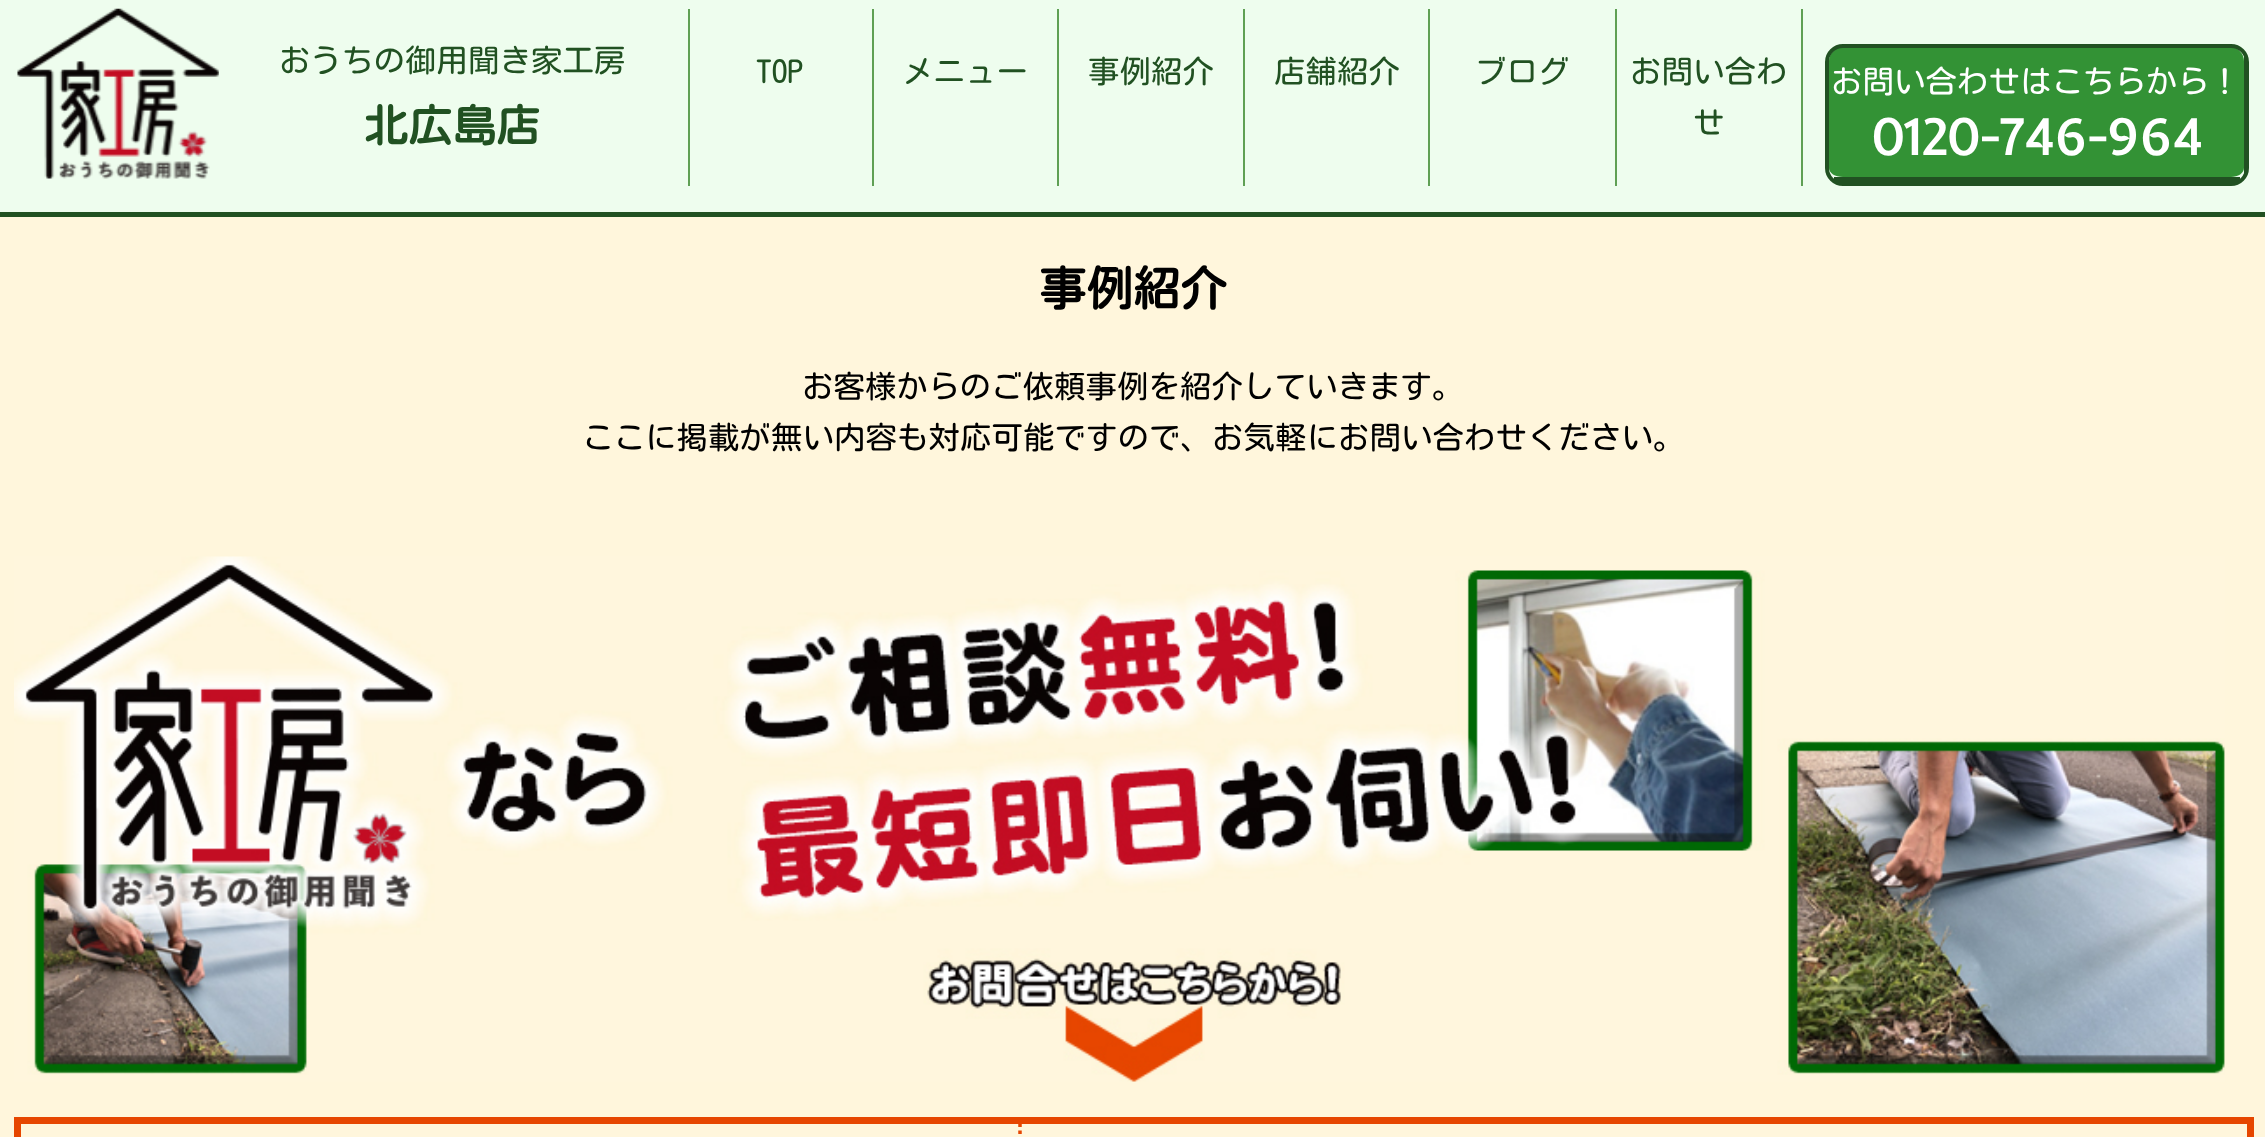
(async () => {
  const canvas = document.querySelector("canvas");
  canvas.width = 2265;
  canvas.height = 1137;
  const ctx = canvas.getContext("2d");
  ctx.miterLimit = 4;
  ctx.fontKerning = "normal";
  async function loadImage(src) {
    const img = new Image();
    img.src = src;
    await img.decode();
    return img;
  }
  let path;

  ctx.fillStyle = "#fff6dc";
  ctx.fillRect(0, 0, 2265, 1137);
  ctx.fillStyle = "#eefdee";
  ctx.fillRect(0, 0, 2265, 212);
  ctx.fillStyle = "#215122";
  ctx.fillRect(0, 212, 2265, 5);
  ctx.drawImage(await loadImage("img/1.png"), 17, 8, 202, 171);
  for (const [x, y, w, h, color] of [
    [872, 9, 2, 177, "#5fa054"],
    [688, 9, 2, 177, "#5fa054"],
    [1057, 9, 2, 177, "#5fa054"],
    [1243, 9, 2, 177, "#5fa054"],
    [1428, 9, 2, 177, "#5fa054"],
    [1615, 9, 2, 177, "#5fa054"],
    [1801, 9, 2, 177, "#5fa054"],
  ]) {
    ctx.fillStyle = color;
    ctx.fillRect(x, y, w, h);
  }
  ctx.fillStyle = "#339235";
  path = new Path2D("M1843 47H2231C2238 47 2244 54 2244 61V168C2244 173 2238 177 2231 177H1843C1835 177 1829 173 1829 168V61C1829 54 1835 47 1843 47Z");
  ctx.fill(path);
  ctx.beginPath();
  ctx.roundRect(1827, 46, 420, 138, 16);
  ctx.strokeStyle = "#215122";
  ctx.lineWidth = 4;
  ctx.stroke();
  ctx.fillStyle = "#215122";
  ctx.fillRect(2244, 53, 1, 124);
  ctx.fillRect(1834, 177, 406, 5);
  ctx.drawImage(await loadImage("img/2.png"), 14, 556, 2211, 526);
  ctx.strokeStyle = "#e64600";
  ctx.lineWidth = 7;
  ctx.strokeRect(17.5, 1120.5, 2233, 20);
  path = new Path2D("M1020 1123.5V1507");
  ctx.lineWidth = 3.5;
  ctx.setLineDash([3.5, 3.5]);
  ctx.stroke(path);
  ctx.font = "31.5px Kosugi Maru";
  ctx.fillText("おうちの御用聞き家工房", 279, 72);
  ctx.font = "bold 44px Kosugi Maru";
  ctx.fillText("北広島店", 364, 142);
  ctx.font = "31.5px Kosugi Maru";
  for (const [text, x, y] of [
    ["TOP", 756, 83],
    ["メニュー", 902, 83],
    ["事例紹介", 1088, 83],
    ["店舗紹介", 1274, 83],
    ["ブログ", 1475, 83],
    ["お問い合わ", 1630, 83],
    ["せ", 1693, 134],
  ]) {
    ctx.fillText(text, x, y);
  }
  ctx.fillStyle = "#ffffff";
  ctx.fillText("お問い合わせはこちらから！", 1831, 93);
  ctx.font = "bold 50.5px Expletus Sans";
  ctx.fillText("0120-746-964", 1871, 155);
  ctx.font = "bold 47px Kosugi Maru";
  ctx.fillStyle = "#000000";
  ctx.fillText("事例紹介", 1039, 306);
  ctx.font = "31.5px Kosugi Maru";
  ctx.fillText("お客様からのご依頼事例を紹介していきます。", 802, 398);
  ctx.fillText("ここに掲載が無い内容も対応可能ですので、お気軽にお問い合わせください。", 582, 449);
})();
